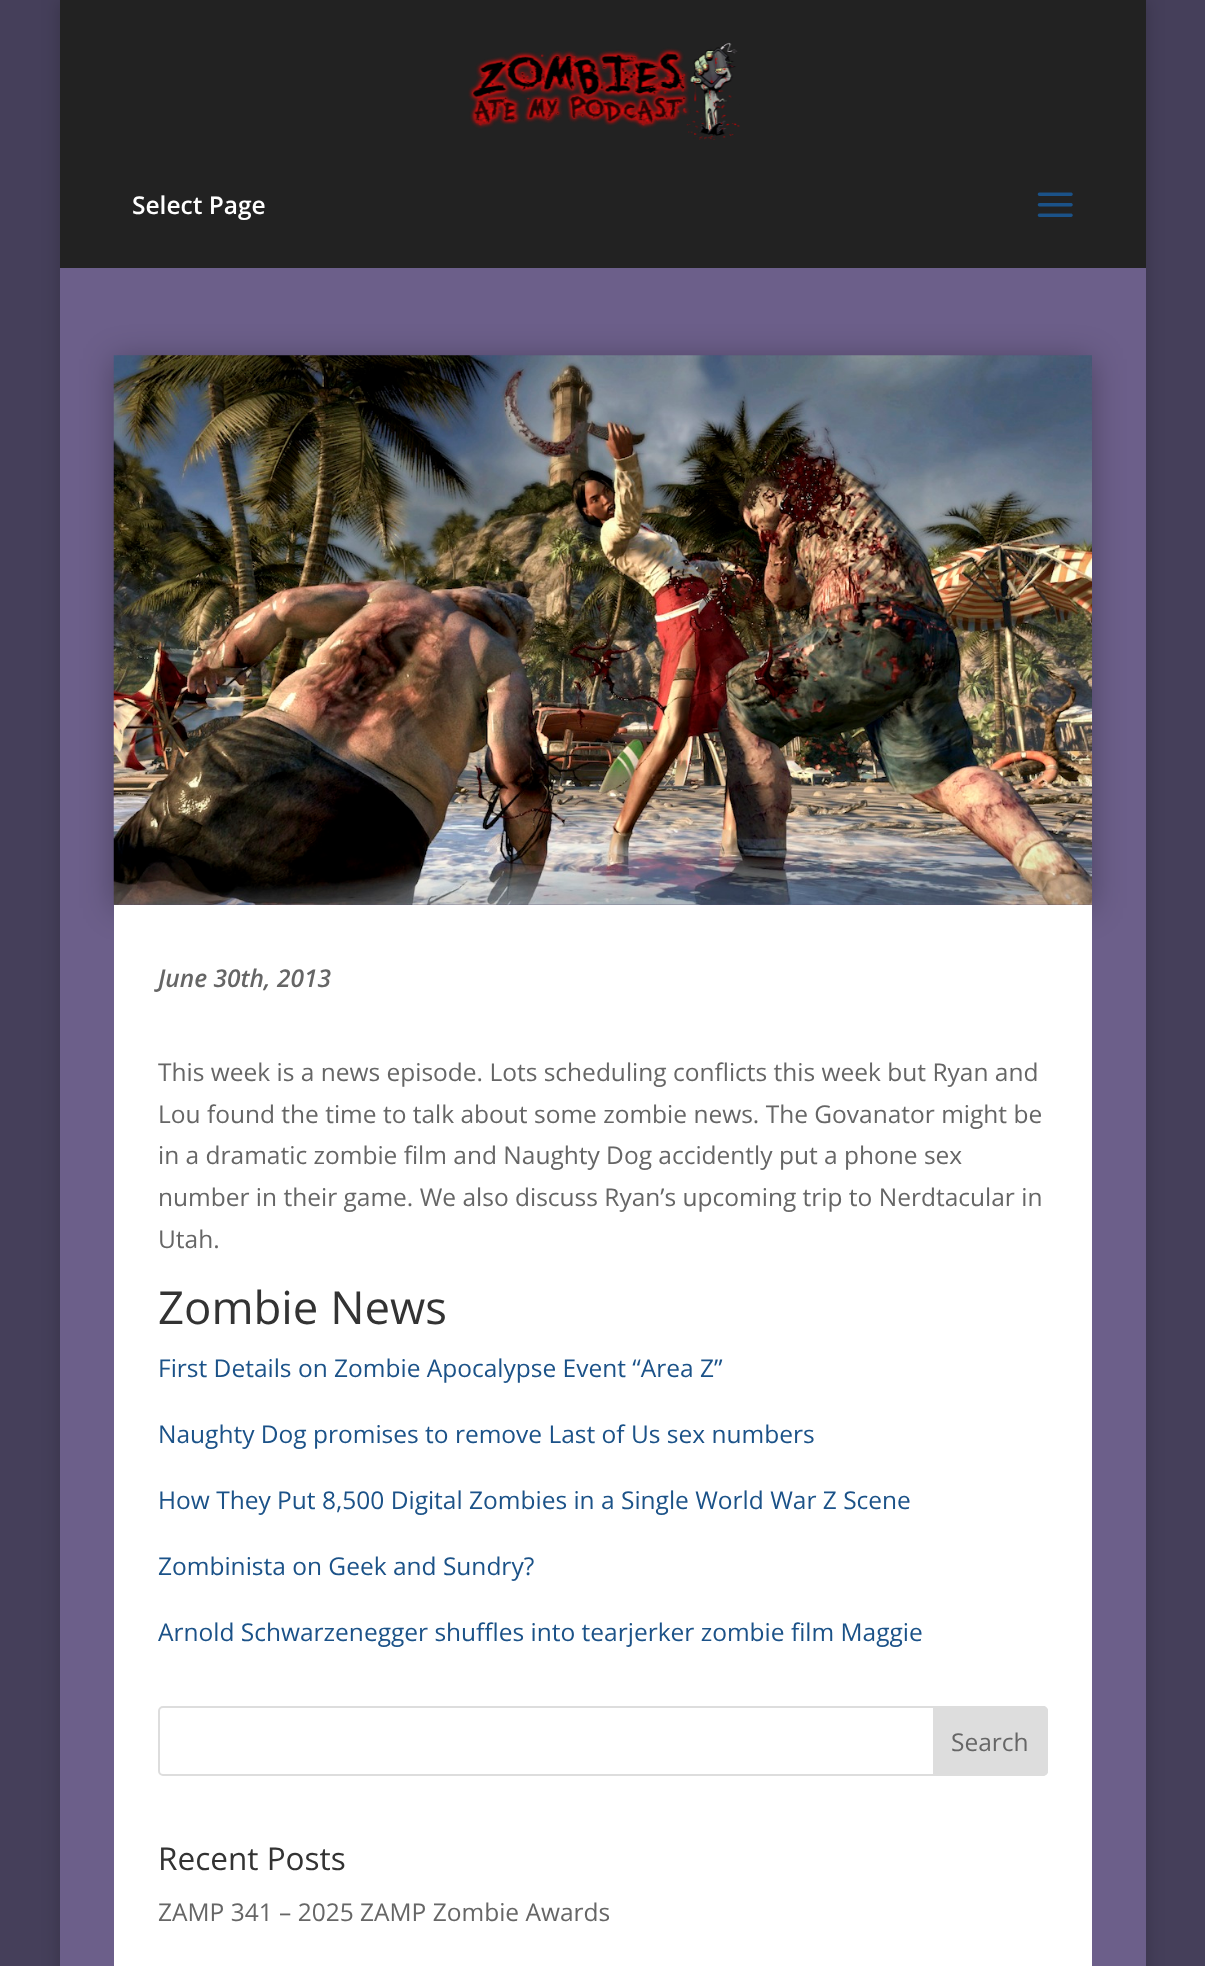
(async () => {
  const canvas = document.querySelector("canvas");
  canvas.width = 1205;
  canvas.height = 1966;
  const ctx = canvas.getContext("2d");
  ctx.miterLimit = 4;
  ctx.fontKerning = "normal";
  async function loadImage(src) {
    const img = new Image();
    img.src = src;
    await img.decode();
    return img;
  }

  ctx.fillStyle = "#453f5a";
  ctx.fillRect(0, 0, 1205, 1966);
  ctx.fillStyle = "rgba(0, 0, 0, 0.2)";
  ctx.filter = "blur(9px)";
  ctx.beginPath();
  ctx.rect(60, 0, 1086, 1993);
  ctx.fill();
  ctx.filter = "none";
  ctx.fillStyle = "#222222";
  ctx.fillRect(60, 0, 1086, 268);
  ctx.drawImage(await loadImage("img/1.png"), 468, 42, 272, 98);
  ctx.drawImage(await loadImage("img/2.png"), 1037, 192, 36, 25);
  ctx.fillStyle = "#6c5f8a";
  ctx.fillRect(60, 268, 1086, 1698);
  ctx.fillStyle = "rgba(0, 0, 0, 0.3)";
  ctx.filter = "blur(16px)";
  ctx.beginPath();
  ctx.rect(114, 359, 978, 549);
  ctx.fill();
  ctx.filter = "none";
  ctx.drawImage(await loadImage("img/3.png"), 113, 355, 979, 550);
  ctx.fillStyle = "#ffffff";
  ctx.fillRect(114, 905, 978, 1061);
  ctx.beginPath();
  ctx.roundRect(159, 1707, 888, 68, 4);
  ctx.strokeStyle = "#dddddd";
  ctx.lineWidth = 2;
  ctx.stroke();
  ctx.fillStyle = "#dddddd";
  ctx.beginPath();
  ctx.roundRect(934, 1707, 113, 68, [0, 4, 4, 0]);
  ctx.fill();
  ctx.stroke();
  ctx.font = "600 24.5px Open Sans";
  ctx.fillStyle = "#ffffff";
  ctx.fillText("Select Page", 132, 214);
  ctx.font = "italic 600 24.5px Open Sans";
  ctx.fillStyle = "#666666";
  ctx.fillText("June 30th, 2013", 158, 987);
  ctx.font = "24.5px Open Sans";
  for (const [text, x, y] of [
    ["This week is a news episode. Lots scheduling conflicts this week but Ryan and", 158, 1081],
    ["Lou found the time to talk about some zombie news. The Govanator might be", 158, 1123],
    ["in a dramatic zombie film and Naughty Dog accidently put a phone sex", 158, 1164],
    ["number in their game. We also discuss Ryan’s upcoming trip to Nerdtacular in", 158, 1206],
    ["Utah.", 158, 1248],
  ]) {
    ctx.fillText(text, x, y);
  }
  ctx.font = "45.5px Open Sans";
  ctx.fillStyle = "#333333";
  ctx.fillText("Zombie News", 158, 1324);
  ctx.font = "24.5px Open Sans";
  ctx.fillStyle = "#1b5288";
  for (const [text, x, y] of [
    ["First Details on Zombie Apocalypse Event “Area Z”", 158, 1377],
    ["Naughty Dog promises to remove Last of Us sex numbers", 158, 1443],
    ["How They Put 8,500 Digital Zombies in a Single World War Z Scene", 158, 1509],
    ["Zombinista on Geek and Sundry?", 158, 1575],
    ["Arnold Schwarzenegger shuffles into tearjerker zombie film Maggie", 158, 1641],
  ]) {
    ctx.fillText(text, x, y);
  }
  ctx.fillStyle = "#666666";
  ctx.fillText("Search", 951, 1751);
  ctx.font = "31.5px Open Sans";
  ctx.fillStyle = "#333333";
  ctx.fillText("Recent Posts", 158, 1870);
  ctx.font = "24.5px Open Sans";
  ctx.fillStyle = "#666666";
  ctx.fillText("ZAMP 341 – 2025 ZAMP Zombie Awards", 158, 1921);
})();
